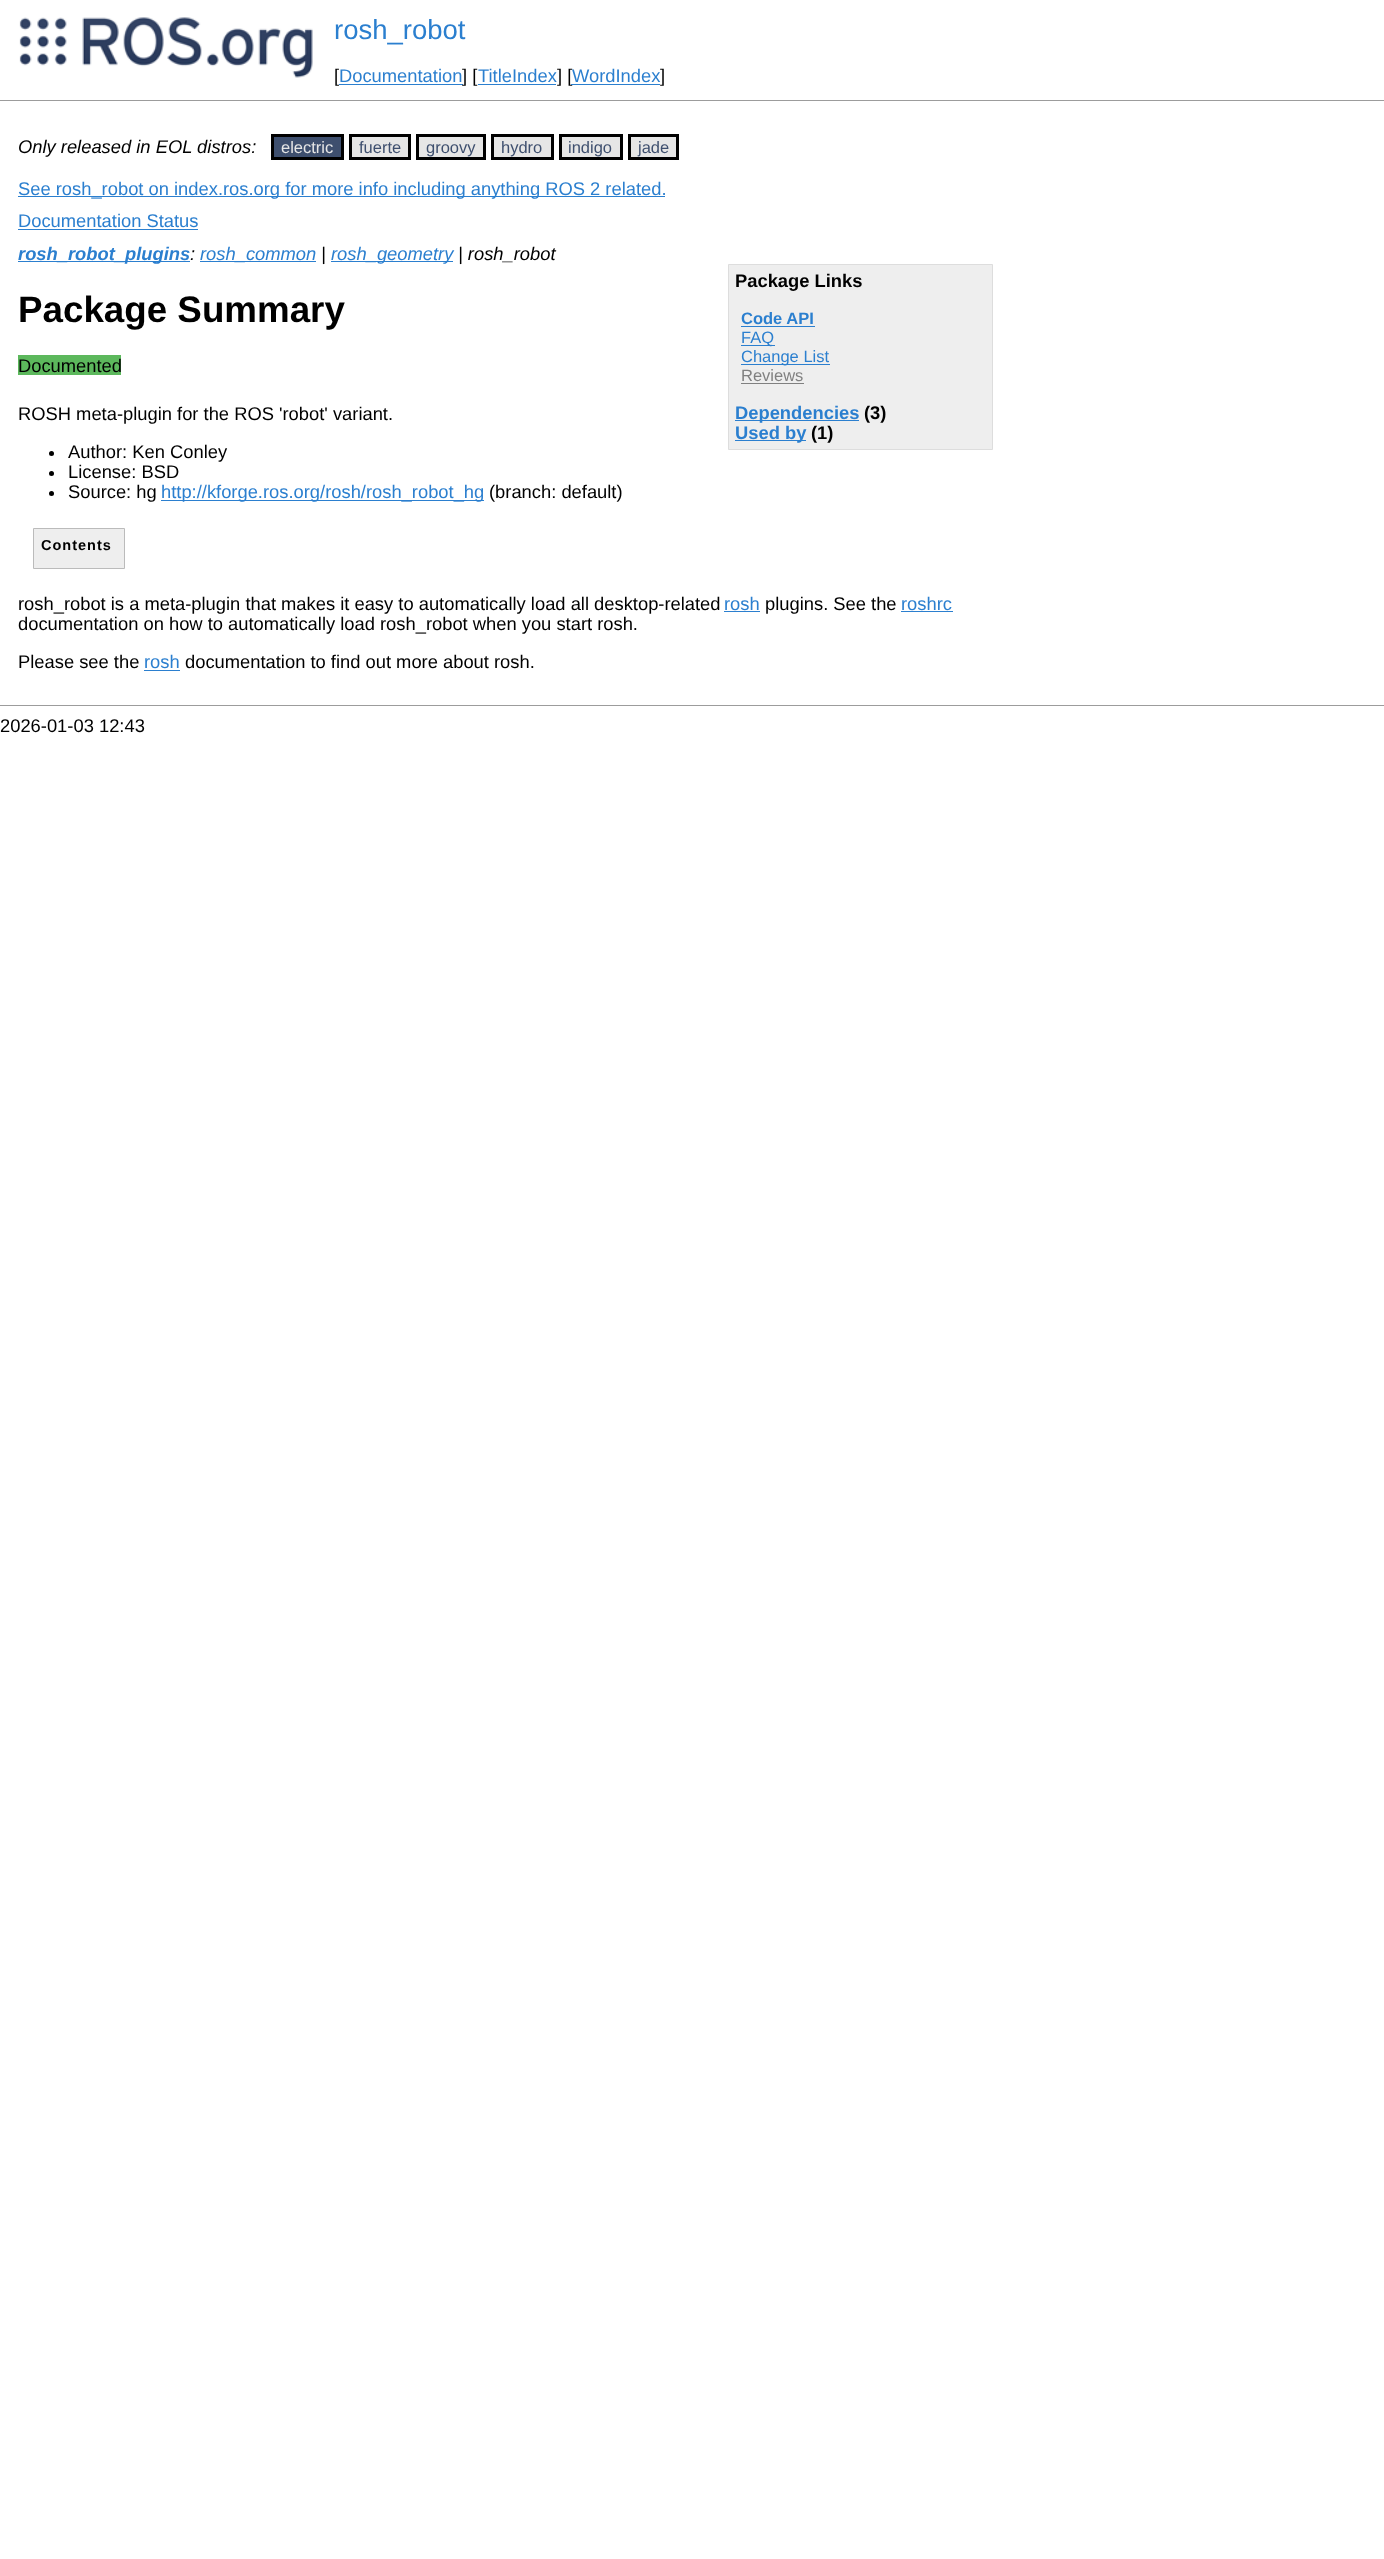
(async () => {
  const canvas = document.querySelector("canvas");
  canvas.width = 1384;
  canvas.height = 2559;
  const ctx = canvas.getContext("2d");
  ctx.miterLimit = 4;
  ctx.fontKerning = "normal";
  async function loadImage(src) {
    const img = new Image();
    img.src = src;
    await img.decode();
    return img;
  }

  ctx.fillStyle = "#ffffff";
  ctx.fillRect(0, 0, 1384, 2559);
  ctx.drawImage(await loadImage("img/1.png"), 19, 17, 294, 61);
  ctx.fillStyle = "#2b7fcf";
  ctx.fillRect(478, 84, 78, 1);
  ctx.fillStyle = "#9c9c9c";
  ctx.fillRect(0, 100, 1384, 1);
  ctx.fillStyle = "#3e4f6e";
  ctx.beginPath();
  ctx.rect(272.5, 135.5, 70, 23);
  ctx.fill();
  ctx.strokeStyle = "#000000";
  ctx.lineWidth = 3;
  ctx.stroke();
  ctx.fillStyle = "#e6e6e6";
  ctx.beginPath();
  ctx.rect(350.5, 135.5, 59, 23);
  ctx.fill();
  ctx.stroke();
  ctx.beginPath();
  ctx.rect(417.5, 135.5, 67, 23);
  ctx.fill();
  ctx.stroke();
  ctx.beginPath();
  ctx.rect(492.5, 135.5, 60, 23);
  ctx.fill();
  ctx.stroke();
  ctx.beginPath();
  ctx.rect(560.5, 135.5, 61, 23);
  ctx.fill();
  ctx.stroke();
  ctx.beginPath();
  ctx.rect(629.5, 135.5, 48, 23);
  ctx.fill();
  ctx.stroke();
  for (const [x, y, w, h, color] of [
    [18, 196, 647, 1, "#2b7fcf"],
    [18, 229, 180, 1, "#2b7fcf"],
    [18, 261, 172, 1, "#2b7fcf"],
    [200, 261, 116, 1, "#2b7fcf"],
    [331, 261, 122, 1, "#2b7fcf"],
  ]) {
    ctx.fillStyle = color;
    ctx.fillRect(x, y, w, h);
  }
  ctx.fillStyle = "#eeeeee";
  ctx.beginPath();
  ctx.rect(728.5, 264.5, 264, 185);
  ctx.fill();
  ctx.strokeStyle = "#dddddd";
  ctx.lineWidth = 1;
  ctx.stroke();
  for (const [x, y, w, h, color] of [
    [741, 326, 74, 1, "#2b7fcf"],
    [741, 345, 34, 1, "#2b7fcf"],
    [741, 364, 89, 1, "#2b7fcf"],
    [741, 383, 63, 1, "#808080"],
    [735, 420, 124, 1, "#2b7fcf"],
    [735, 440, 71, 1, "#2b7fcf"],
    [18, 355, 103, 20, "#5cb85c"],
  ]) {
    ctx.fillStyle = color;
    ctx.fillRect(x, y, w, h);
  }
  ctx.fillStyle = "#000000";
  ctx.beginPath();
  ctx.arc(51.5, 453.5, 2.5, 0, Math.PI * 2);
  ctx.fill();
  ctx.beginPath();
  ctx.arc(51.5, 473.5, 2.5, 0, Math.PI * 2);
  ctx.fill();
  ctx.beginPath();
  ctx.arc(51.5, 493.5, 2.5, 0, Math.PI * 2);
  ctx.fill();
  ctx.fillStyle = "#2b7fcf";
  ctx.fillRect(161, 500, 323, 1);
  ctx.fillStyle = "#eeeeee";
  ctx.beginPath();
  ctx.rect(33.5, 528.5, 91, 40);
  ctx.fill();
  ctx.strokeStyle = "#bbbbbb";
  ctx.stroke();
  for (const [x, y, w, h, color] of [
    [724, 611, 36, 1, "#2b7fcf"],
    [901, 611, 52, 1, "#2b7fcf"],
    [144, 670, 36, 1, "#2b7fcf"],
    [0, 705, 1384, 1, "#9c9c9c"],
  ]) {
    ctx.fillStyle = color;
    ctx.fillRect(x, y, w, h);
  }
  ctx.font = "27.5px Liberation Sans";
  ctx.fillStyle = "#2b7fcf";
  ctx.fillText("rosh_robot", 334, 39);
  ctx.font = "18.35px Liberation Sans";
  ctx.fillStyle = "#000000";
  ctx.fillText("[", 334, 82);
  ctx.fillStyle = "#2b7fcf";
  ctx.fillText("Documentation", 339, 82);
  ctx.fillRect(339, 84, 124, 1);
  ctx.fillStyle = "#000000";
  ctx.fillText("] [", 462, 82);
  ctx.fillStyle = "#2b7fcf";
  ctx.fillText("TitleIndex", 478, 82);
  ctx.fillStyle = "#000000";
  ctx.fillText("] [", 557, 82);
  ctx.fillStyle = "#2b7fcf";
  ctx.fillText("WordIndex", 572, 82);
  ctx.fillRect(571, 84, 89, 1);
  ctx.fillStyle = "#000000";
  ctx.fillText("]", 660, 82);
  ctx.font = "italic 18.35px Liberation Sans";
  ctx.fillText("Only released in EOL distros:", 18, 153);
  ctx.font = "16.5px Liberation Sans";
  ctx.fillStyle = "#e6e6e6";
  ctx.fillText("electric", 281, 153);
  ctx.fillStyle = "#3e4f6e";
  for (const [text, x, y] of [
    ["fuerte", 359, 153],
    ["groovy", 426, 153],
    ["hydro", 501, 153],
    ["indigo", 568, 153],
    ["jade", 638, 153],
  ]) {
    ctx.fillText(text, x, y);
  }
  ctx.font = "18.35px Liberation Sans";
  ctx.fillStyle = "#2b7fcf";
  ctx.fillText("See rosh_robot on index.ros.org for more info including anything ROS 2 related.", 18, 195);
  ctx.fillText("Documentation Status", 18, 227);
  ctx.font = "italic bold 18.35px Liberation Sans";
  ctx.fillText("rosh_robot_plugins", 18, 260);
  ctx.font = "italic 18.35px Liberation Sans";
  ctx.fillStyle = "#000000";
  ctx.fillText(":", 190, 260);
  ctx.fillStyle = "#2b7fcf";
  ctx.fillText("rosh_common", 200, 260);
  ctx.fillStyle = "#000000";
  ctx.fillText("|", 321, 260);
  ctx.fillStyle = "#2b7fcf";
  ctx.fillText("rosh_geometry", 331, 260);
  ctx.fillStyle = "#000000";
  ctx.fillText("| rosh_robot", 458, 260);
  ctx.font = "bold 36.75px Liberation Sans";
  ctx.fillText("Package Summary", 18, 322);
  ctx.font = "bold 18.35px Liberation Sans";
  ctx.fillText("Package Links", 735, 287);
  ctx.font = "bold 16.5px Liberation Sans";
  ctx.fillStyle = "#2b7fcf";
  ctx.fillText("Code API", 741, 324);
  ctx.font = "16.5px Liberation Sans";
  ctx.fillText("FAQ", 741, 343);
  ctx.fillText("Change List", 741, 362);
  ctx.fillStyle = "#808080";
  ctx.fillText("Reviews", 741, 381);
  ctx.font = "bold 18.35px Liberation Sans";
  ctx.fillStyle = "#2b7fcf";
  ctx.fillText("Dependencies", 735, 419);
  ctx.fillStyle = "#000000";
  ctx.fillText("(3)", 864, 419);
  ctx.fillStyle = "#2b7fcf";
  ctx.fillText("Used by", 735, 439);
  ctx.fillStyle = "#000000";
  ctx.fillText("(1)", 811, 439);
  ctx.font = "18.35px Liberation Sans";
  for (const [text, x, y] of [
    ["Documented", 18, 372],
    ["ROSH meta-plugin for the ROS 'robot' variant.", 18, 420],
    ["Author: Ken Conley", 68, 458],
    ["License: BSD", 68, 478],
    ["Source: hg", 68, 498],
  ]) {
    ctx.fillText(text, x, y);
  }
  ctx.fillStyle = "#2b7fcf";
  ctx.fillText("http://kforge.ros.org/rosh/rosh_robot_hg", 161, 498);
  ctx.fillStyle = "#000000";
  ctx.fillText("(branch: default)", 489, 498);
  ctx.letterSpacing = "1px";
  ctx.font = "bold 14.5px Liberation Sans";
  ctx.fillText("Contents", 41, 550);
  ctx.letterSpacing = "0px";
  ctx.font = "18.35px Liberation Sans";
  ctx.fillText("rosh_robot is a meta-plugin that makes it easy to automatically load all desktop-related", 18, 610);
  ctx.fillStyle = "#2b7fcf";
  ctx.fillText("rosh", 724, 610);
  ctx.fillStyle = "#000000";
  ctx.fillText("plugins. See the", 765, 610);
  ctx.fillStyle = "#2b7fcf";
  ctx.fillText("roshrc", 901, 610);
  ctx.fillStyle = "#000000";
  ctx.fillText("documentation on how to automatically load rosh_robot when you start rosh.", 18, 630);
  ctx.fillText("Please see the", 18, 668);
  ctx.fillStyle = "#2b7fcf";
  ctx.fillText("rosh", 144, 668);
  ctx.fillStyle = "#000000";
  ctx.fillText("documentation to find out more about rosh.", 185, 668);
  ctx.fillText("2026-01-03 12:43", 0, 732);
})();
